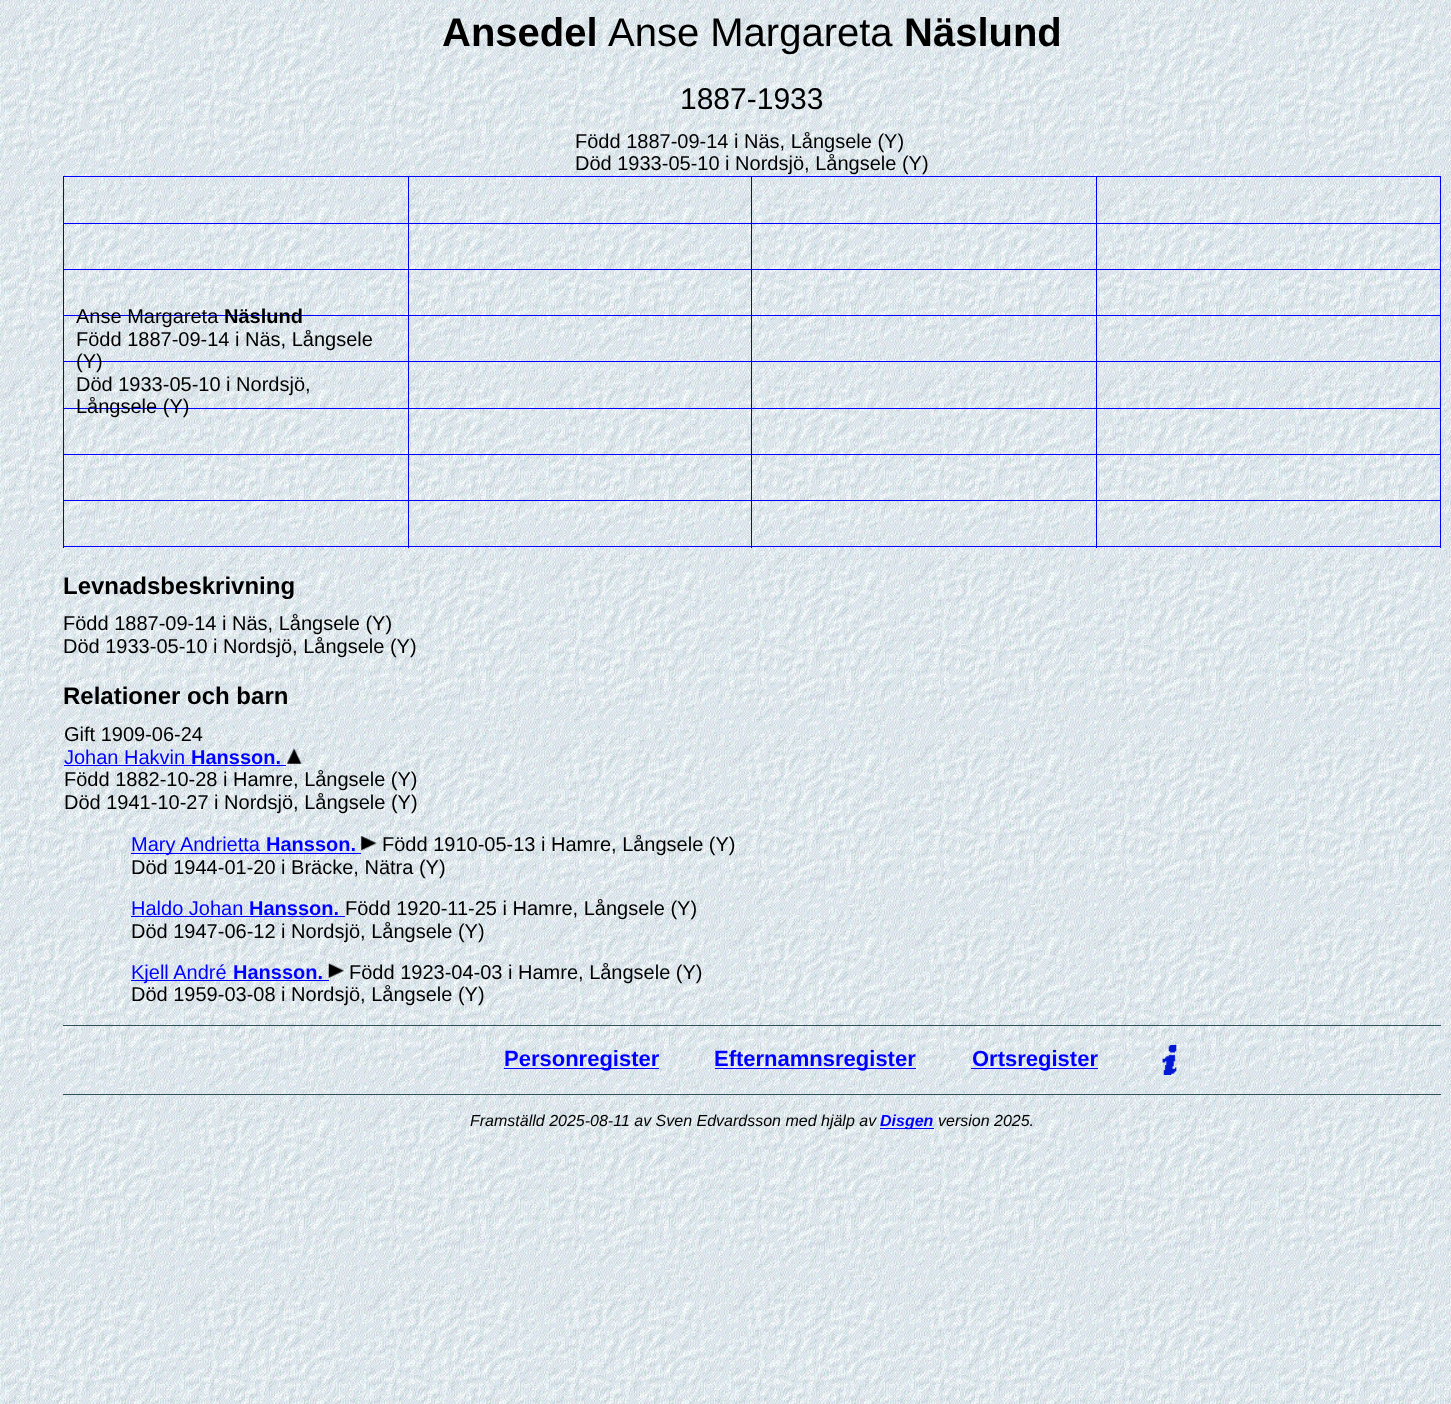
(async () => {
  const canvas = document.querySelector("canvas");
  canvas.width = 1451;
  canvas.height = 1404;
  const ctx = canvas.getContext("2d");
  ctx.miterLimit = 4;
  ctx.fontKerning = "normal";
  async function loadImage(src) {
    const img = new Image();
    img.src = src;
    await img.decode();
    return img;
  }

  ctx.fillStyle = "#ffffff";
  ctx.fillRect(0, 0, 1451, 1404);
  ctx.drawImage(await loadImage("img/1.png"), 0, 0, 1451, 1404);
  for (const [x, y, w, h, color] of [
    [63, 176, 1378, 1, "#0000ff"],
    [1440, 176, 1, 372, "#0000ff"],
    [63, 546, 1378, 1, "#0000ff"],
    [63, 176, 1, 372, "#0000ff"],
    [63, 500, 1378, 1, "#0000ff"],
    [63, 454, 1378, 1, "#0000ff"],
    [63, 361, 1378, 1, "#0000ff"],
    [63, 223, 1378, 1, "#0000ff"],
    [63, 269, 1378, 1, "#0000ff"],
    [63, 315, 1378, 1, "#0000ff"],
    [63, 408, 1378, 1, "#0000ff"],
    [1096, 176, 1, 372, "#0000ff"],
    [751, 176, 1, 372, "#0000ff"],
    [408, 176, 1, 372, "#0000ff"],
    [64, 765, 222, 1, "#0000ff"],
  ]) {
    ctx.fillStyle = color;
    ctx.fillRect(x, y, w, h);
  }
  ctx.drawImage(await loadImage("img/2.png"), 287, 748, 15, 16);
  ctx.fillRect(131, 853, 129, 1);
  ctx.fillRect(260, 853, 101, 1);
  ctx.drawImage(await loadImage("img/3.png"), 361, 836, 16, 15);
  ctx.fillRect(131, 916, 214, 1);
  ctx.fillRect(131, 980, 198, 1);
  ctx.drawImage(await loadImage("img/4.png"), 328, 963, 16, 15);
  for (const [x, y, w, h, color] of [
    [63, 1025, 1378, 1, "#305059"],
    [63, 1094, 1378, 1, "#305059"],
    [504, 1068, 155, 1, "#0000ff"],
    [715, 1068, 201, 1, "#0000ff"],
    [971, 1068, 127, 1, "#0000ff"],
  ]) {
    ctx.fillStyle = color;
    ctx.fillRect(x, y, w, h);
  }
  ctx.drawImage(await loadImage("img/5.png"), 1162, 1045, 15, 30);
  ctx.fillRect(880, 1128, 54, 1);
  ctx.font = "bold 40px Liberation Sans";
  ctx.fillStyle = "#000000";
  ctx.fillText("Ansedel", 442, 46);
  ctx.font = "40px Liberation Sans";
  ctx.fillText("Anse Margareta", 608, 46);
  ctx.font = "bold 40px Liberation Sans";
  ctx.fillText("Näslund", 904, 46);
  ctx.font = "30px Liberation Sans";
  ctx.fillText("1887-1933", 680, 109);
  ctx.font = "20px Liberation Sans";
  for (const [text, x, y] of [
    ["Född 1887-09-14 i Näs, Långsele (Y)", 575, 148],
    ["Död 1933-05-10 i Nordsjö, Långsele (Y)", 575, 170],
    ["Anse Margareta", 76, 323],
  ]) {
    ctx.fillText(text, x, y);
  }
  ctx.font = "bold 20px Liberation Sans";
  ctx.fillText("Näslund", 224, 323);
  ctx.font = "20px Liberation Sans";
  for (const [text, x, y] of [
    ["Född 1887-09-14 i Näs, Långsele", 76, 346],
    ["(Y)", 76, 368],
    ["Död 1933-05-10 i Nordsjö,", 76, 391],
    ["Långsele (Y)", 76, 413],
  ]) {
    ctx.fillText(text, x, y);
  }
  ctx.font = "bold 24px Liberation Sans";
  ctx.fillText("Levnadsbeskrivning", 63, 594);
  ctx.font = "20px Liberation Sans";
  ctx.fillText("Född 1887-09-14 i Näs, Långsele (Y)", 63, 630);
  ctx.fillText("Död 1933-05-10 i Nordsjö, Långsele (Y)", 63, 653);
  ctx.font = "bold 24px Liberation Sans";
  ctx.fillText("Relationer och barn", 63, 704);
  ctx.font = "20px Liberation Sans";
  ctx.fillText("Gift 1909-06-24", 64, 741);
  ctx.fillStyle = "#0000ff";
  ctx.fillText("Johan Hakvin", 64, 764);
  ctx.font = "bold 20px Liberation Sans";
  ctx.fillText("Hansson.", 191, 764);
  ctx.font = "20px Liberation Sans";
  ctx.fillStyle = "#000000";
  ctx.fillText("Född 1882-10-28 i Hamre, Långsele (Y)", 64, 786);
  ctx.fillText("Död 1941-10-27 i Nordsjö, Långsele (Y)", 64, 809);
  ctx.fillStyle = "#0000ff";
  ctx.fillText("Mary Andrietta", 131, 851);
  ctx.font = "bold 20px Liberation Sans";
  ctx.fillText("Hansson.", 266, 851);
  ctx.font = "20px Liberation Sans";
  ctx.fillStyle = "#000000";
  ctx.fillText("Född 1910-05-13 i Hamre, Långsele (Y)", 382, 851);
  ctx.fillText("Död 1944-01-20 i Bräcke, Nätra (Y)", 131, 874);
  ctx.fillStyle = "#0000ff";
  ctx.fillText("Haldo Johan", 131, 915);
  ctx.font = "bold 20px Liberation Sans";
  ctx.fillText("Hansson.", 249, 915);
  ctx.font = "20px Liberation Sans";
  ctx.fillStyle = "#000000";
  ctx.fillText("Född 1920-11-25 i Hamre, Långsele (Y)", 345, 915);
  ctx.fillText("Död 1947-06-12 i Nordsjö, Långsele (Y)", 131, 938);
  ctx.fillStyle = "#0000ff";
  ctx.fillText("Kjell André", 131, 979);
  ctx.font = "bold 20px Liberation Sans";
  ctx.fillText("Hansson.", 233, 979);
  ctx.font = "20px Liberation Sans";
  ctx.fillStyle = "#000000";
  ctx.fillText("Född 1923-04-03 i Hamre, Långsele (Y)", 349, 979);
  ctx.fillText("Död 1959-03-08 i Nordsjö, Långsele (Y)", 131, 1001);
  ctx.font = "bold 22px Liberation Sans";
  ctx.fillStyle = "#0000ff";
  for (const [text, x, y] of [
    ["Personregister", 504, 1066],
    ["Efternamnsregister", 714, 1066],
    ["Ortsregister", 972, 1066],
  ]) {
    ctx.fillText(text, x, y);
  }
  ctx.font = "italic 16px Liberation Sans";
  ctx.fillStyle = "#000000";
  ctx.fillText("Framställd 2025-08-11 av Sven Edvardsson med hjälp av", 470, 1126);
  ctx.font = "italic bold 16px Liberation Sans";
  ctx.fillStyle = "#0000ff";
  ctx.fillText("Disgen", 880, 1126);
  ctx.font = "italic 16px Liberation Sans";
  ctx.fillStyle = "#000000";
  ctx.fillText("version 2025.", 938, 1126);
})();
